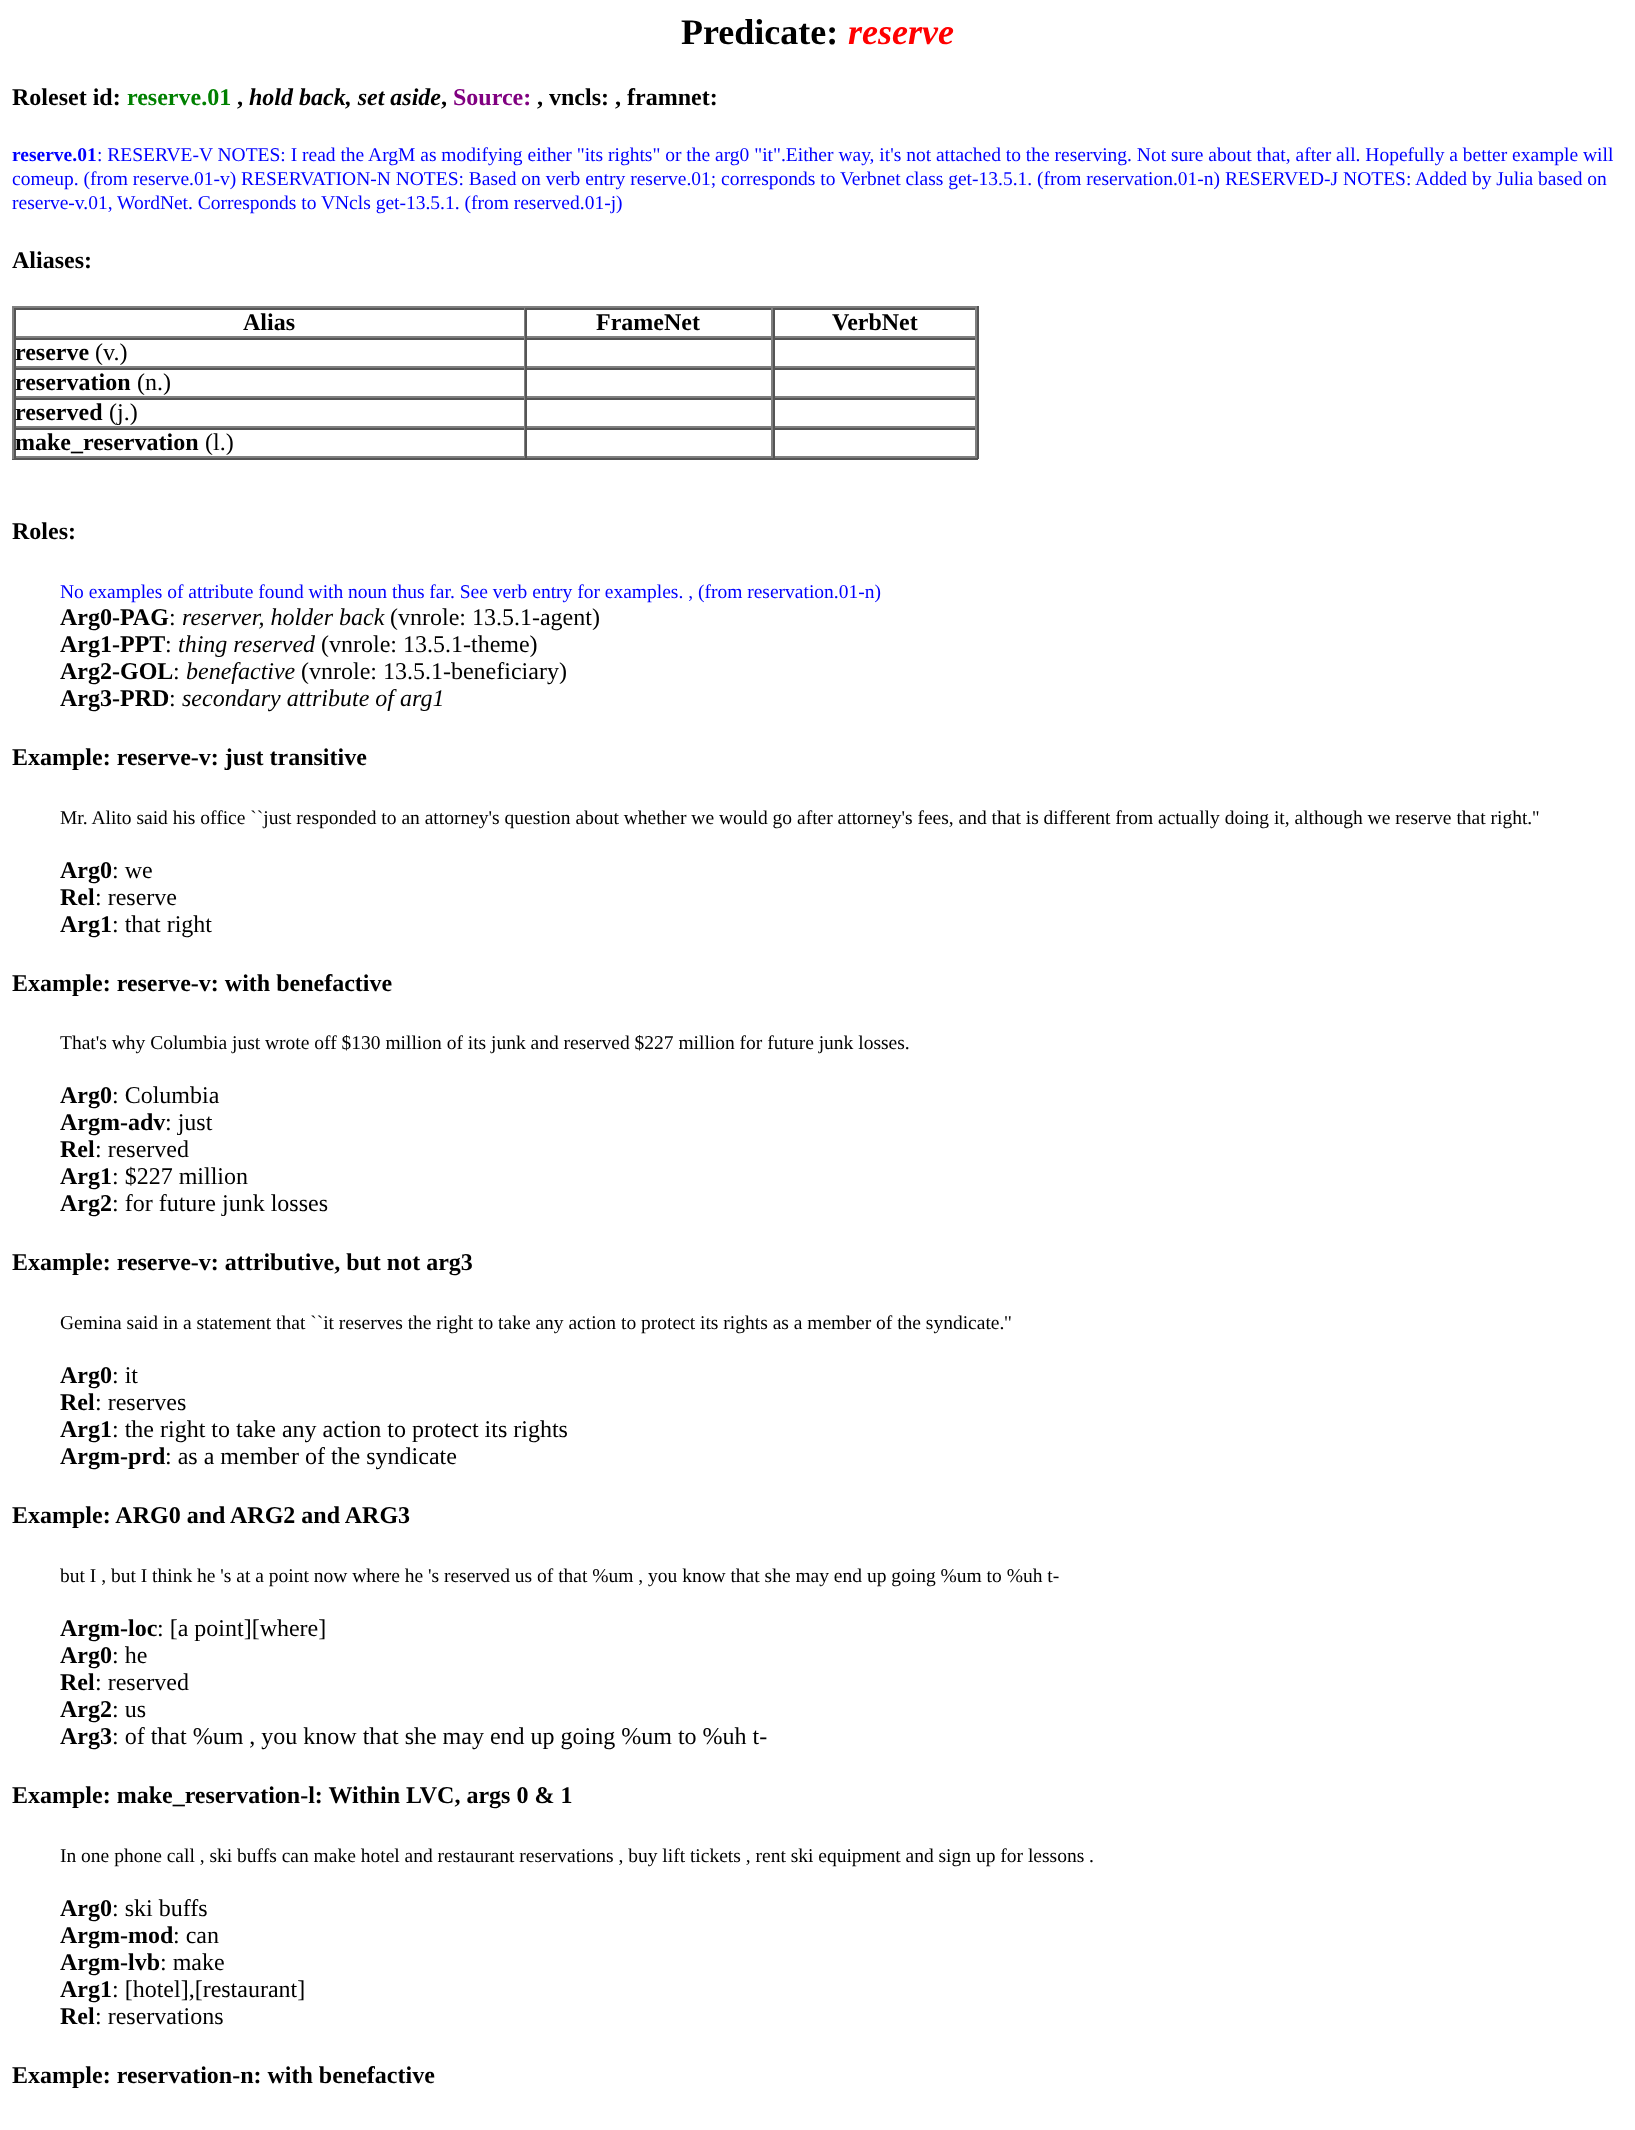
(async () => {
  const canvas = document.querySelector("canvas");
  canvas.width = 1635;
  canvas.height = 2130;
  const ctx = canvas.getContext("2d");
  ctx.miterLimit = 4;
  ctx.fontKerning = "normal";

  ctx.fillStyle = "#ffffff";
  ctx.fillRect(0, 0, 1635, 2130);
  for (const [x, y, w, h, color] of [
    [12, 306, 966, 2, "#808080"],
    [977, 306, 2, 153, "#555555"],
    [12, 458, 966, 2, "#555555"],
    [12, 306, 2, 153, "#808080"],
    [14, 308, 963, 2, "#555555"],
    [524, 308, 1, 30, "#808080"],
    [14, 336, 511, 2, "#808080"],
    [14, 308, 2, 30, "#555555"],
    [771, 308, 2, 30, "#808080"],
    [525, 336, 248, 2, "#808080"],
    [525, 308, 2, 30, "#555555"],
    [975, 308, 2, 30, "#808080"],
    [773, 336, 204, 2, "#808080"],
    [773, 308, 2, 30, "#555555"],
    [14, 338, 963, 2, "#555555"],
    [524, 338, 1, 30, "#808080"],
    [14, 366, 511, 2, "#808080"],
    [14, 338, 2, 30, "#555555"],
    [771, 338, 2, 30, "#808080"],
    [525, 366, 248, 2, "#808080"],
    [525, 338, 2, 30, "#555555"],
    [975, 338, 2, 30, "#808080"],
    [773, 366, 204, 2, "#808080"],
    [773, 338, 2, 30, "#555555"],
    [14, 368, 963, 2, "#555555"],
    [524, 368, 1, 30, "#808080"],
    [14, 396, 511, 2, "#808080"],
    [14, 368, 2, 30, "#555555"],
    [771, 368, 2, 30, "#808080"],
    [525, 396, 248, 2, "#808080"],
    [525, 368, 2, 30, "#555555"],
    [975, 368, 2, 30, "#808080"],
    [773, 396, 204, 2, "#808080"],
    [773, 368, 2, 30, "#555555"],
    [14, 398, 963, 2, "#555555"],
    [524, 398, 1, 30, "#808080"],
    [14, 426, 511, 2, "#808080"],
    [14, 398, 2, 30, "#555555"],
    [771, 398, 2, 30, "#808080"],
    [525, 426, 248, 2, "#808080"],
    [525, 398, 2, 30, "#555555"],
    [975, 398, 2, 30, "#808080"],
    [773, 426, 204, 2, "#808080"],
    [773, 398, 2, 30, "#555555"],
    [14, 428, 963, 2, "#555555"],
    [524, 428, 1, 30, "#808080"],
    [14, 456, 511, 2, "#808080"],
    [14, 428, 2, 30, "#555555"],
    [771, 428, 2, 30, "#808080"],
    [525, 456, 248, 2, "#808080"],
    [525, 428, 2, 30, "#555555"],
    [975, 428, 2, 30, "#808080"],
    [773, 456, 204, 2, "#808080"],
    [773, 428, 2, 30, "#555555"],
  ]) {
    ctx.fillStyle = color;
    ctx.fillRect(x, y, w, h);
  }
  ctx.font = "bold 36px Liberation Serif";
  ctx.fillStyle = "#000000";
  ctx.fillText("Predicate:", 681, 44);
  ctx.font = "italic bold 36px Liberation Serif";
  ctx.fillStyle = "#ff0000";
  ctx.fillText("reserve", 848, 44);
  ctx.font = "bold 24px Liberation Serif";
  ctx.fillStyle = "#000000";
  ctx.fillText("Roleset id:", 12, 105);
  ctx.fillStyle = "#008000";
  ctx.fillText("reserve.01", 127, 105);
  ctx.fillStyle = "#000000";
  ctx.fillText(",", 237, 105);
  ctx.font = "italic bold 24px Liberation Serif";
  ctx.fillText("hold back, set aside", 249, 105);
  ctx.font = "bold 24px Liberation Serif";
  ctx.fillText(",", 441, 105);
  ctx.fillStyle = "#800080";
  ctx.fillText("Source:", 453, 105);
  ctx.fillStyle = "#000000";
  ctx.fillText(", vncls: , framnet:", 537, 105);
  ctx.font = "bold 19.5px Liberation Serif";
  ctx.fillStyle = "#0000ff";
  ctx.fillText("reserve.01", 12, 161);
  ctx.font = "19.5px Liberation Serif";
  for (const [text, x, y] of [
    [": RESERVE-V NOTES: I read the ArgM as modifying either \"its rights\" or the arg0 \"it\".Either way, it's not attached to the reserving. Not sure about that, after all. Hopefully a better example will", 97, 161],
    ["comeup. (from reserve.01-v) RESERVATION-N NOTES: Based on verb entry reserve.01; corresponds to Verbnet class get-13.5.1. (from reservation.01-n) RESERVED-J NOTES: Added by Julia based on", 12, 185],
    ["reserve-v.01, WordNet. Corresponds to VNcls get-13.5.1. (from reserved.01-j)", 12, 209],
  ]) {
    ctx.fillText(text, x, y);
  }
  ctx.font = "bold 24px Liberation Serif";
  ctx.fillStyle = "#000000";
  for (const [text, x, y] of [
    ["Aliases:", 12, 268],
    ["Alias", 243, 330],
    ["FrameNet", 596, 330],
    ["VerbNet", 832, 330],
    ["reserve", 15, 360],
  ]) {
    ctx.fillText(text, x, y);
  }
  ctx.font = "24px Liberation Serif";
  ctx.fillText("(v.)", 95, 360);
  ctx.font = "bold 24px Liberation Serif";
  ctx.fillText("reservation", 15, 390);
  ctx.font = "24px Liberation Serif";
  ctx.fillText("(n.)", 137, 390);
  ctx.font = "bold 24px Liberation Serif";
  ctx.fillText("reserved", 15, 420);
  ctx.font = "24px Liberation Serif";
  ctx.fillText("(j.)", 109, 420);
  ctx.font = "bold 24px Liberation Serif";
  ctx.fillText("make_reservation", 15, 450);
  ctx.font = "24px Liberation Serif";
  ctx.fillText("(l.)", 205, 450);
  ctx.font = "bold 24px Liberation Serif";
  ctx.fillText("Roles:", 12, 539);
  ctx.font = "19.5px Liberation Serif";
  ctx.fillStyle = "#0000ff";
  ctx.fillText("No examples of attribute found with noun thus far. See verb entry for examples. , (from reservation.01-n)", 60, 598);
  ctx.font = "bold 24px Liberation Serif";
  ctx.fillStyle = "#000000";
  ctx.fillText("Arg0-PAG", 60, 625);
  ctx.font = "24px Liberation Serif";
  ctx.fillText(":", 169, 625);
  ctx.font = "italic 24px Liberation Serif";
  ctx.fillText("reserver, holder back", 182, 625);
  ctx.font = "24px Liberation Serif";
  ctx.fillText("(vnrole: 13.5.1-agent)", 390, 625);
  ctx.font = "bold 24px Liberation Serif";
  ctx.fillText("Arg1-PPT", 60, 652);
  ctx.font = "24px Liberation Serif";
  ctx.fillText(":", 165, 652);
  ctx.font = "italic 24px Liberation Serif";
  ctx.fillText("thing reserved", 178, 652);
  ctx.font = "24px Liberation Serif";
  ctx.fillText("(vnrole: 13.5.1-theme)", 321, 652);
  ctx.font = "bold 24px Liberation Serif";
  ctx.fillText("Arg2-GOL", 60, 679);
  ctx.font = "24px Liberation Serif";
  ctx.fillText(":", 173, 679);
  ctx.font = "italic 24px Liberation Serif";
  ctx.fillText("benefactive", 186, 679);
  ctx.font = "24px Liberation Serif";
  ctx.fillText("(vnrole: 13.5.1-beneficiary)", 301, 679);
  ctx.font = "bold 24px Liberation Serif";
  ctx.fillText("Arg3-PRD", 60, 706);
  ctx.font = "24px Liberation Serif";
  ctx.fillText(":", 169, 706);
  ctx.font = "italic 24px Liberation Serif";
  ctx.fillText("secondary attribute of arg1", 182, 706);
  ctx.font = "bold 24px Liberation Serif";
  ctx.fillText("Example: reserve-v: just transitive", 12, 765);
  ctx.font = "19.5px Liberation Serif";
  ctx.fillText("Mr. Alito said his office ``just responded to an attorney's question about whether we would go after attorney's fees, and that is different from actually doing it, although we reserve that right.''", 60, 824);
  ctx.font = "bold 24px Liberation Serif";
  ctx.fillText("Arg0", 60, 878);
  ctx.font = "24px Liberation Serif";
  ctx.fillText(": we", 112, 878);
  ctx.font = "bold 24px Liberation Serif";
  ctx.fillText("Rel", 60, 905);
  ctx.font = "24px Liberation Serif";
  ctx.fillText(": reserve", 95, 905);
  ctx.font = "bold 24px Liberation Serif";
  ctx.fillText("Arg1", 60, 932);
  ctx.font = "24px Liberation Serif";
  ctx.fillText(": that right", 112, 932);
  ctx.font = "bold 24px Liberation Serif";
  ctx.fillText("Example: reserve-v: with benefactive", 12, 991);
  ctx.font = "19.5px Liberation Serif";
  ctx.fillText("That's why Columbia just wrote off $130 million of its junk and reserved $227 million for future junk losses.", 60, 1049);
  ctx.font = "bold 24px Liberation Serif";
  ctx.fillText("Arg0", 60, 1103);
  ctx.font = "24px Liberation Serif";
  ctx.fillText(": Columbia", 112, 1103);
  ctx.font = "bold 24px Liberation Serif";
  ctx.fillText("Argm-adv", 60, 1130);
  ctx.font = "24px Liberation Serif";
  ctx.fillText(": just", 165, 1130);
  ctx.font = "bold 24px Liberation Serif";
  ctx.fillText("Rel", 60, 1157);
  ctx.font = "24px Liberation Serif";
  ctx.fillText(": reserved", 95, 1157);
  ctx.font = "bold 24px Liberation Serif";
  ctx.fillText("Arg1", 60, 1184);
  ctx.font = "24px Liberation Serif";
  ctx.fillText(": $227 million", 112, 1184);
  ctx.font = "bold 24px Liberation Serif";
  ctx.fillText("Arg2", 60, 1211);
  ctx.font = "24px Liberation Serif";
  ctx.fillText(": for future junk losses", 112, 1211);
  ctx.font = "bold 24px Liberation Serif";
  ctx.fillText("Example: reserve-v: attributive, but not arg3", 12, 1270);
  ctx.font = "19.5px Liberation Serif";
  ctx.fillText("Gemina said in a statement that ``it reserves the right to take any action to protect its rights as a member of the syndicate.''", 60, 1329);
  ctx.font = "bold 24px Liberation Serif";
  ctx.fillText("Arg0", 60, 1383);
  ctx.font = "24px Liberation Serif";
  ctx.fillText(": it", 112, 1383);
  ctx.font = "bold 24px Liberation Serif";
  ctx.fillText("Rel", 60, 1410);
  ctx.font = "24px Liberation Serif";
  ctx.fillText(": reserves", 95, 1410);
  ctx.font = "bold 24px Liberation Serif";
  ctx.fillText("Arg1", 60, 1437);
  ctx.font = "24px Liberation Serif";
  ctx.fillText(": the right to take any action to protect its rights", 112, 1437);
  ctx.font = "bold 24px Liberation Serif";
  ctx.fillText("Argm-prd", 60, 1464);
  ctx.font = "24px Liberation Serif";
  ctx.fillText(": as a member of the syndicate", 165, 1464);
  ctx.font = "bold 24px Liberation Serif";
  ctx.fillText("Example: ARG0 and ARG2 and ARG3", 12, 1523);
  ctx.font = "19.5px Liberation Serif";
  ctx.fillText("but I , but I think he 's at a point now where he 's reserved us of that %um , you know that she may end up going %um to %uh t-", 60, 1582);
  ctx.font = "bold 24px Liberation Serif";
  ctx.fillText("Argm-loc", 60, 1636);
  ctx.font = "24px Liberation Serif";
  ctx.fillText(": [a point][where]", 157, 1636);
  ctx.font = "bold 24px Liberation Serif";
  ctx.fillText("Arg0", 60, 1663);
  ctx.font = "24px Liberation Serif";
  ctx.fillText(": he", 112, 1663);
  ctx.font = "bold 24px Liberation Serif";
  ctx.fillText("Rel", 60, 1690);
  ctx.font = "24px Liberation Serif";
  ctx.fillText(": reserved", 95, 1690);
  ctx.font = "bold 24px Liberation Serif";
  ctx.fillText("Arg2", 60, 1717);
  ctx.font = "24px Liberation Serif";
  ctx.fillText(": us", 112, 1717);
  ctx.font = "bold 24px Liberation Serif";
  ctx.fillText("Arg3", 60, 1744);
  ctx.font = "24px Liberation Serif";
  ctx.fillText(": of that %um , you know that she may end up going %um to %uh t-", 112, 1744);
  ctx.font = "bold 24px Liberation Serif";
  ctx.fillText("Example: make_reservation-l: Within LVC, args 0 & 1", 12, 1803);
  ctx.font = "19.5px Liberation Serif";
  ctx.fillText("In one phone call , ski buffs can make hotel and restaurant reservations , buy lift tickets , rent ski equipment and sign up for lessons .", 60, 1862);
  ctx.font = "bold 24px Liberation Serif";
  ctx.fillText("Arg0", 60, 1916);
  ctx.font = "24px Liberation Serif";
  ctx.fillText(": ski buffs", 112, 1916);
  ctx.font = "bold 24px Liberation Serif";
  ctx.fillText("Argm-mod", 60, 1943);
  ctx.font = "24px Liberation Serif";
  ctx.fillText(": can", 173, 1943);
  ctx.font = "bold 24px Liberation Serif";
  ctx.fillText("Argm-lvb", 60, 1970);
  ctx.font = "24px Liberation Serif";
  ctx.fillText(": make", 160, 1970);
  ctx.font = "bold 24px Liberation Serif";
  ctx.fillText("Arg1", 60, 1997);
  ctx.font = "24px Liberation Serif";
  ctx.fillText(": [hotel],[restaurant]", 112, 1997);
  ctx.font = "bold 24px Liberation Serif";
  ctx.fillText("Rel", 60, 2024);
  ctx.font = "24px Liberation Serif";
  ctx.fillText(": reservations", 95, 2024);
  ctx.font = "bold 24px Liberation Serif";
  ctx.fillText("Example: reservation-n: with benefactive", 12, 2083);
})();
